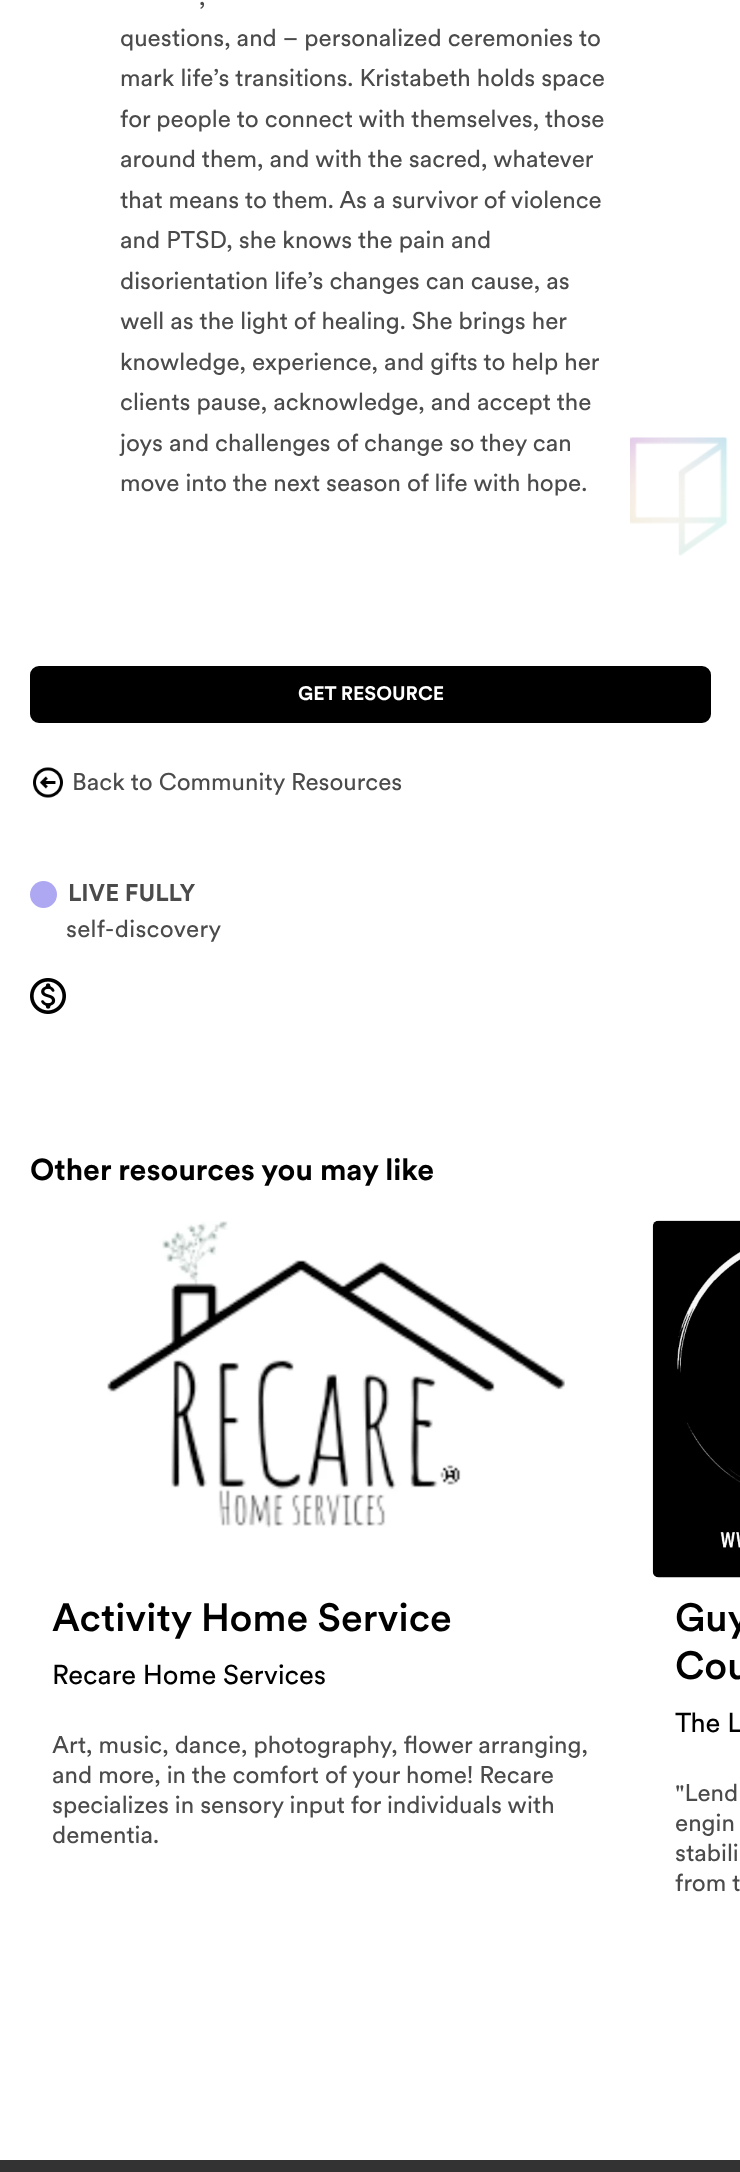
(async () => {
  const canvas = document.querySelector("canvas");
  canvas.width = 740;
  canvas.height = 2172;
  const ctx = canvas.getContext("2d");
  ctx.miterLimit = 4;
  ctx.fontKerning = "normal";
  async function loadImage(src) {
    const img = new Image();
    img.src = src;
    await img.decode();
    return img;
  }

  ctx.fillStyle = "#ffffff";
  ctx.fillRect(0, 0, 740, 2172);
  ctx.drawImage(await loadImage("img/1.png"), 630, 437, 98, 119);
  ctx.fillStyle = "#000000";
  ctx.beginPath();
  ctx.roundRect(31, 667, 679, 55, 8);
  ctx.fill();
  ctx.strokeStyle = "#000000";
  ctx.lineWidth = 2;
  ctx.stroke();
  ctx.drawImage(await loadImage("img/2.png"), 33, 767, 30, 31);
  ctx.fillStyle = "#aea8f2";
  ctx.beginPath();
  ctx.arc(43.5, 894.5, 13.5, 0, Math.PI * 2);
  ctx.fill();
  ctx.drawImage(await loadImage("img/3.png"), 30, 978, 36, 36);
  ctx.drawImage(await loadImage("img/4.png"), 107, 1221, 458, 307);
  ctx.drawImage(await loadImage("img/5.png"), 652, 1220, 88, 358);
  ctx.fillStyle = "#333333";
  ctx.fillRect(0, 2160, 740, 12);
  ctx.font = "24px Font";
  ctx.fillStyle = "#4b4b4b";
  for (const [text, x, y] of [
    [",", 199, 5],
    ["questions, and – personalized ceremonies to", 120, 46],
    ["mark life’s transitions. Kristabeth holds space", 120, 86],
    ["for people to connect with themselves, those", 120, 127],
    ["around them, and with the sacred, whatever", 120, 167],
    ["that means to them. As a survivor of violence", 120, 208],
    ["and PTSD, she knows the pain and", 120, 248],
    ["disorientation life’s changes can cause, as", 120, 289],
    ["well as the light of healing. She brings her", 120, 329],
    ["knowledge, experience, and gifts to help her", 120, 370],
    ["clients pause, acknowledge, and accept the", 120, 410],
    ["joys and challenges of change so they can", 120, 451],
    ["move into the next season of life with hope.", 120, 491],
  ]) {
    ctx.fillText(text, x, y);
  }
  ctx.font = "bold 19.5px Font";
  ctx.fillStyle = "#ffffff";
  ctx.fillText("GET RESOURCE", 298, 700);
  ctx.font = "24px Font";
  ctx.fillStyle = "#4b4b4b";
  ctx.fillText("Back to Community Resources", 72, 790);
  ctx.font = "bold 24px Font";
  ctx.fillText("LIVE FULLY", 68, 901);
  ctx.letterSpacing = "0.25px";
  ctx.font = "24px Font";
  ctx.fillText("self-discovery", 66, 937);
  ctx.letterSpacing = "0px";
  ctx.font = "bold 30px Font";
  ctx.fillStyle = "#000000";
  ctx.fillText("Other resources you may like", 30, 1180);
  ctx.font = "500 39px Font";
  ctx.fillText("Activity Home Service", 52, 1631);
  ctx.font = "27px Font";
  ctx.fillText("Recare Home Services", 52, 1684);
  ctx.font = "24px Font";
  ctx.fillStyle = "#4b4b4b";
  for (const [text, x, y] of [
    ["Art, music, dance, photography, flower arranging,", 52, 1753],
    ["and more, in the comfort of your home! Recare", 52, 1783],
    ["specializes in sensory input for individuals with", 52, 1813],
    ["dementia.", 52, 1843],
  ]) {
    ctx.fillText(text, x, y);
  }
  ctx.font = "500 39px Font";
  ctx.fillStyle = "#000000";
  ctx.fillText("Guy", 675, 1631);
  ctx.fillText("Cou", 675, 1679);
  ctx.font = "27px Font";
  ctx.fillText("The L", 675, 1732);
  ctx.font = "24px Font";
  ctx.fillStyle = "#4b4b4b";
  for (const [text, x, y] of [
    ["\"Lend", 675, 1801],
    ["engin", 675, 1831],
    ["stabili", 675, 1861],
    ["from t", 675, 1891],
  ]) {
    ctx.fillText(text, x, y);
  }
})();
